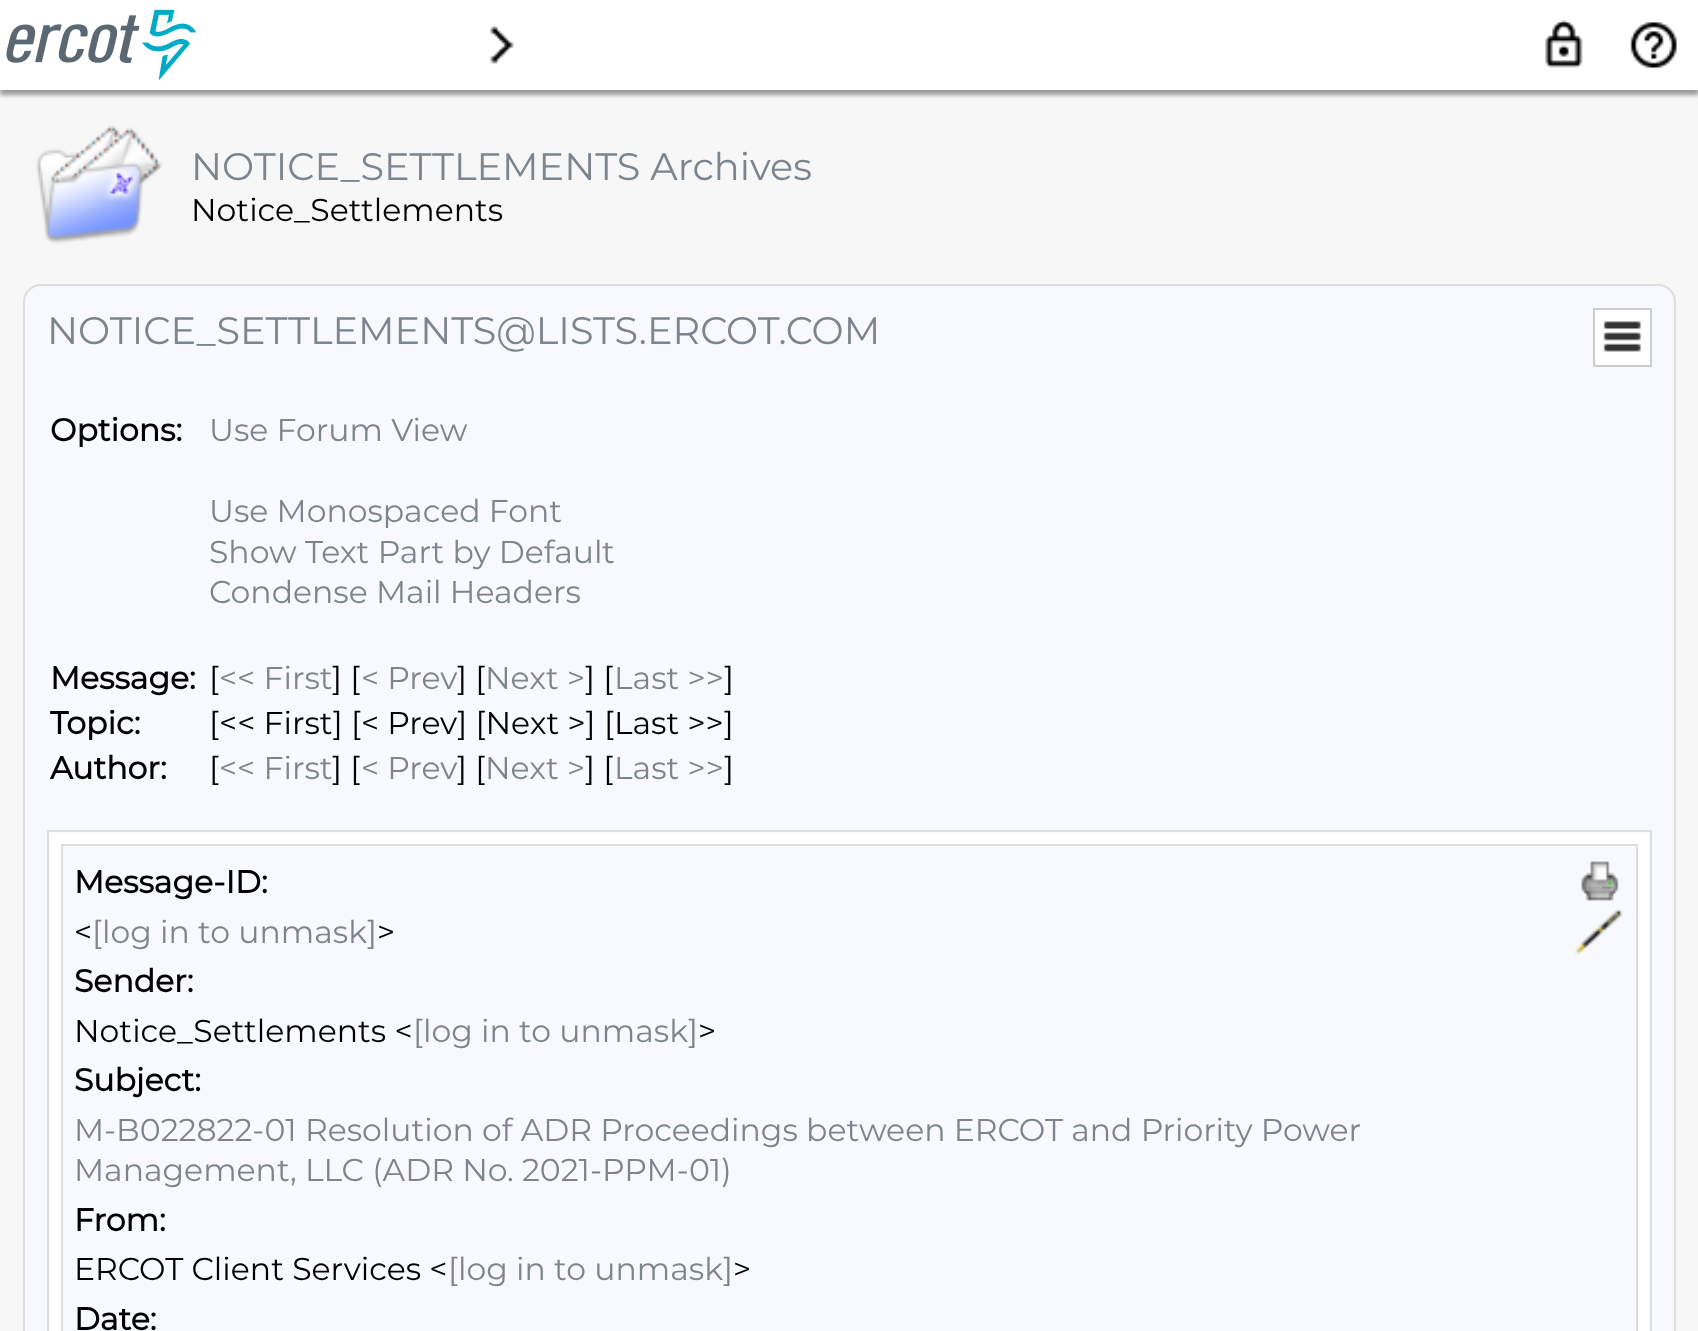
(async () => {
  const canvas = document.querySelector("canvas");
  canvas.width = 1698;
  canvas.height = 1331;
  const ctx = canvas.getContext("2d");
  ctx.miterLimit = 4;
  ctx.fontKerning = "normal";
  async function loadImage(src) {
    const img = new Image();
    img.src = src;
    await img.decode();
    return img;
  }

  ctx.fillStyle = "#f7f7f7";
  ctx.fillRect(0, 0, 1698, 1331);
  ctx.fillStyle = "#999999";
  ctx.filter = "blur(2px)";
  ctx.beginPath();
  ctx.rect(0, 5, 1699, 90);
  ctx.fill();
  ctx.filter = "none";
  ctx.fillStyle = "#ffffff";
  ctx.fillRect(0, 0, 1698, 90);
  ctx.drawImage(await loadImage("img/1.png"), 6, 9, 191, 71);
  ctx.drawImage(await loadImage("img/2.png"), 490, 26, 24, 38);
  ctx.drawImage(await loadImage("img/3.png"), 1545, 19, 38, 49);
  ctx.drawImage(await loadImage("img/4.png"), 1630, 22, 47, 47);
  ctx.drawImage(await loadImage("img/5.png"), 36, 125, 127, 119);
  ctx.fillStyle = "#f7f9fe";
  ctx.beginPath();
  ctx.roundRect(24, 285, 1651, 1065, 17);
  ctx.fill();
  ctx.strokeStyle = "#dedede";
  ctx.lineWidth = 2;
  ctx.stroke();
  ctx.fillStyle = "#ffffff";
  ctx.beginPath();
  ctx.rect(1594, 309, 57, 57);
  ctx.fill();
  ctx.strokeStyle = "#cccccc";
  ctx.stroke();
  ctx.drawImage(await loadImage("img/6.png"), 1603, 321, 38, 31);
  ctx.strokeStyle = "#dedede";
  ctx.strokeRect(48, 831, 1603, 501);
  ctx.fillRect(50, 833, 1599, 498);
  ctx.strokeRect(62, 845, 1575, 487);
  ctx.fillStyle = "#f7f9fe";
  ctx.fillRect(63, 846, 1573, 485);
  ctx.drawImage(await loadImage("img/7.png"), 1581, 861, 38, 40);
  ctx.drawImage(await loadImage("img/8.png"), 1575, 908, 48, 47);
  ctx.font = "100 38.25px Montserrat";
  ctx.fillStyle = "#7c858d";
  ctx.fillText("NOTICE_SETTLEMENTS Archives", 191, 180);
  ctx.font = "100 31.5px Montserrat";
  ctx.fillStyle = "#000000";
  ctx.fillText("Notice_Settlements", 191, 221);
  ctx.font = "100 38.25px Montserrat";
  ctx.fillStyle = "#7c858d";
  ctx.fillText("NOTICE_SETTLEMENTS@LISTS.ERCOT.COM", 47, 344);
  ctx.font = "bold 31.5px Montserrat";
  ctx.fillStyle = "#000000";
  ctx.fillText("Options:", 50, 441);
  ctx.font = "100 31.5px Montserrat";
  ctx.fillStyle = "#7c858d";
  for (const [text, x, y] of [
    ["Use Forum View", 209, 441],
    ["Use Monospaced Font", 209, 522],
    ["Show Text Part by Default", 209, 563],
    ["Condense Mail Headers", 209, 603],
  ]) {
    ctx.fillText(text, x, y);
  }
  ctx.font = "bold 31.5px Montserrat";
  ctx.fillStyle = "#000000";
  ctx.fillText("Message:", 50, 689);
  ctx.font = "100 31.5px Montserrat";
  ctx.fillText("[", 209, 689);
  ctx.fillStyle = "#7c858d";
  ctx.fillText("<< First", 219, 689);
  ctx.fillStyle = "#000000";
  ctx.fillText("] [", 332, 689);
  ctx.fillStyle = "#7c858d";
  ctx.fillText("< Prev", 361, 689);
  ctx.fillStyle = "#000000";
  ctx.fillText("] [", 457, 689);
  ctx.fillStyle = "#7c858d";
  ctx.fillText("Next >", 485, 689);
  ctx.fillStyle = "#000000";
  ctx.fillText("] [", 585, 689);
  ctx.fillStyle = "#7c858d";
  ctx.fillText("Last >>", 614, 689);
  ctx.fillStyle = "#000000";
  ctx.fillText("]", 724, 689);
  ctx.font = "bold 31.5px Montserrat";
  ctx.fillText("Topic:", 50, 734);
  ctx.font = "100 31.5px Montserrat";
  ctx.fillText("[<< First] [< Prev] [Next >] [Last >>]", 209, 734);
  ctx.font = "bold 31.5px Montserrat";
  ctx.fillText("Author:", 50, 779);
  ctx.font = "100 31.5px Montserrat";
  ctx.fillText("[", 209, 779);
  ctx.fillStyle = "#7c858d";
  ctx.fillText("<< First", 219, 779);
  ctx.fillStyle = "#000000";
  ctx.fillText("] [", 332, 779);
  ctx.fillStyle = "#7c858d";
  ctx.fillText("< Prev", 361, 779);
  ctx.fillStyle = "#000000";
  ctx.fillText("] [", 457, 779);
  ctx.fillStyle = "#7c858d";
  ctx.fillText("Next >", 485, 779);
  ctx.fillStyle = "#000000";
  ctx.fillText("] [", 585, 779);
  ctx.fillStyle = "#7c858d";
  ctx.fillText("Last >>", 614, 779);
  ctx.fillStyle = "#000000";
  ctx.fillText("]", 724, 779);
  ctx.font = "bold 31.5px Montserrat";
  ctx.fillText("Message-ID:", 74, 893);
  ctx.font = "100 31.5px Montserrat";
  ctx.fillText("<", 74, 943);
  ctx.fillStyle = "#7c858d";
  ctx.fillText("[log in to unmask]", 92, 943);
  ctx.fillStyle = "#000000";
  ctx.fillText(">", 377, 943);
  ctx.font = "bold 31.5px Montserrat";
  ctx.fillText("Sender:", 74, 992);
  ctx.font = "100 31.5px Montserrat";
  ctx.fillText("Notice_Settlements <", 74, 1042);
  ctx.fillStyle = "#7c858d";
  ctx.fillText("[log in to unmask]", 413, 1042);
  ctx.fillStyle = "#000000";
  ctx.fillText(">", 698, 1042);
  ctx.font = "bold 31.5px Montserrat";
  ctx.fillText("Subject:", 74, 1091);
  ctx.font = "100 31.5px Montserrat";
  ctx.fillStyle = "#7c858d";
  ctx.fillText("M-B022822-01 Resolution of ADR Proceedings between ERCOT and Priority Power", 74, 1141);
  ctx.fillText("Management, LLC (ADR No. 2021-PPM-01)", 74, 1181);
  ctx.font = "bold 31.5px Montserrat";
  ctx.fillStyle = "#000000";
  ctx.fillText("From:", 74, 1231);
  ctx.font = "100 31.5px Montserrat";
  ctx.fillText("ERCOT Client Services <", 74, 1280);
  ctx.fillStyle = "#7c858d";
  ctx.fillText("[log in to unmask]", 448, 1280);
  ctx.fillStyle = "#000000";
  ctx.fillText(">", 733, 1280);
  ctx.font = "bold 31.5px Montserrat";
  ctx.fillText("Date:", 74, 1330);
})();
